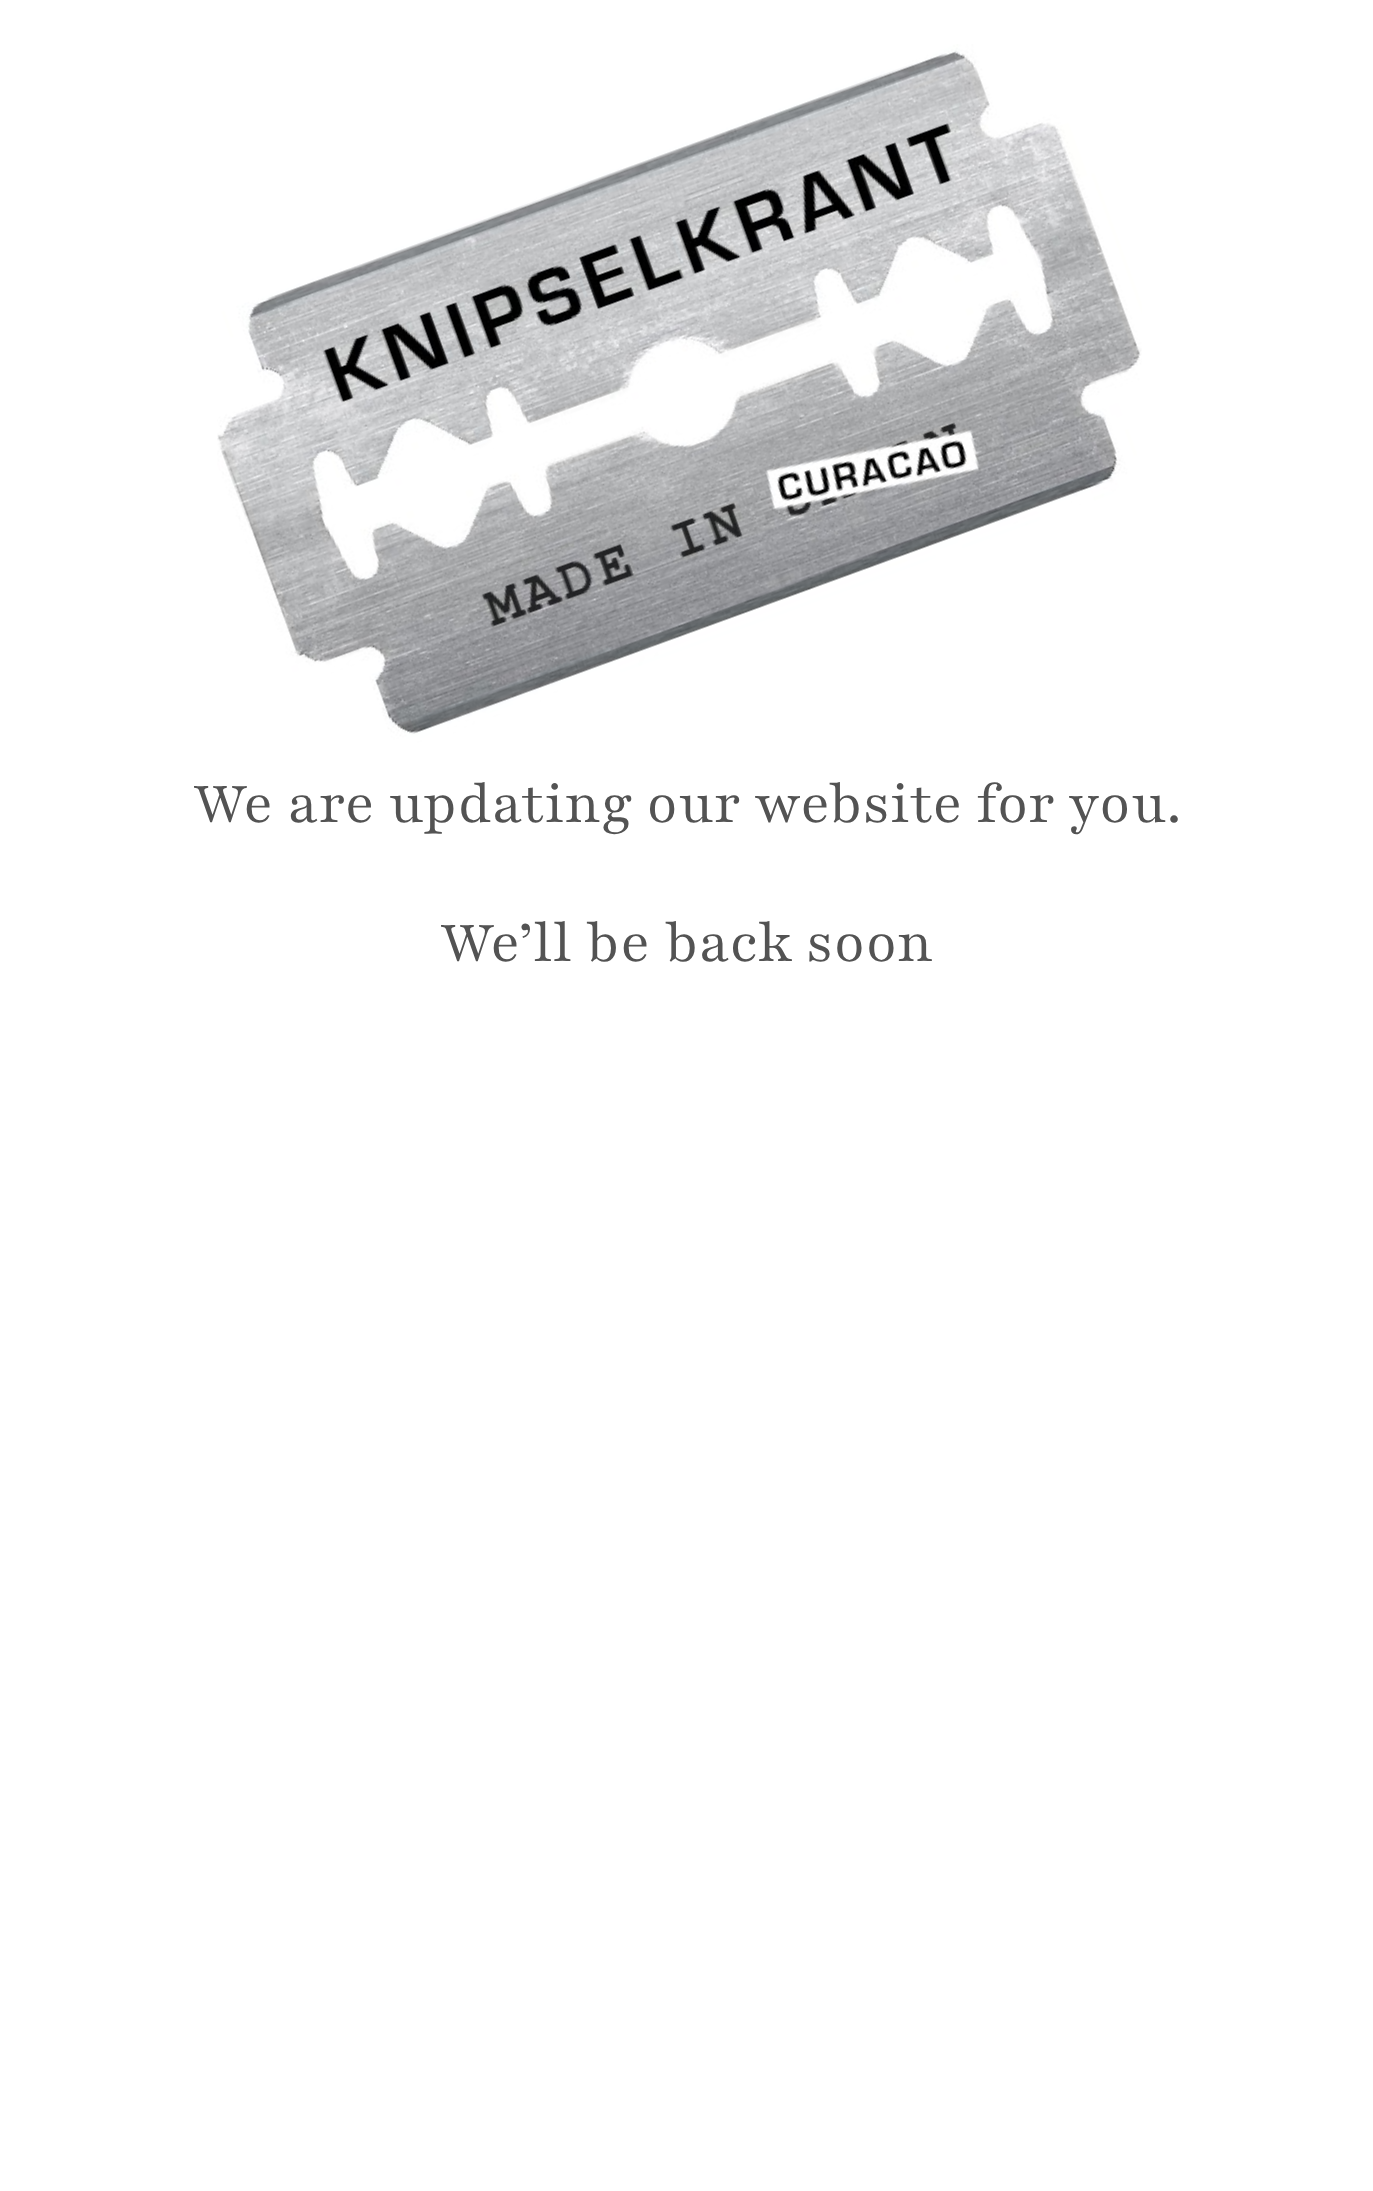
(async () => {
  const canvas = document.querySelector("canvas");
  canvas.width = 1373;
  canvas.height = 2191;
  const ctx = canvas.getContext("2d");
  ctx.miterLimit = 4;
  ctx.fontKerning = "normal";
  async function loadImage(src) {
    const img = new Image();
    img.src = src;
    await img.decode();
    return img;
  }

  ctx.fillStyle = "#ffffff";
  ctx.fillRect(0, 0, 1373, 2191);
  ctx.font = "300 63px 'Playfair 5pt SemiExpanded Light'";
  ctx.fillStyle = "#535353";
  ctx.fillText("We are updating our website for you.", 193, 822);
  ctx.drawImage(await loadImage("img/1.png"), 217, 44, 925, 754);
  ctx.fillText("We’ll be back soon", 440, 961);
})();
